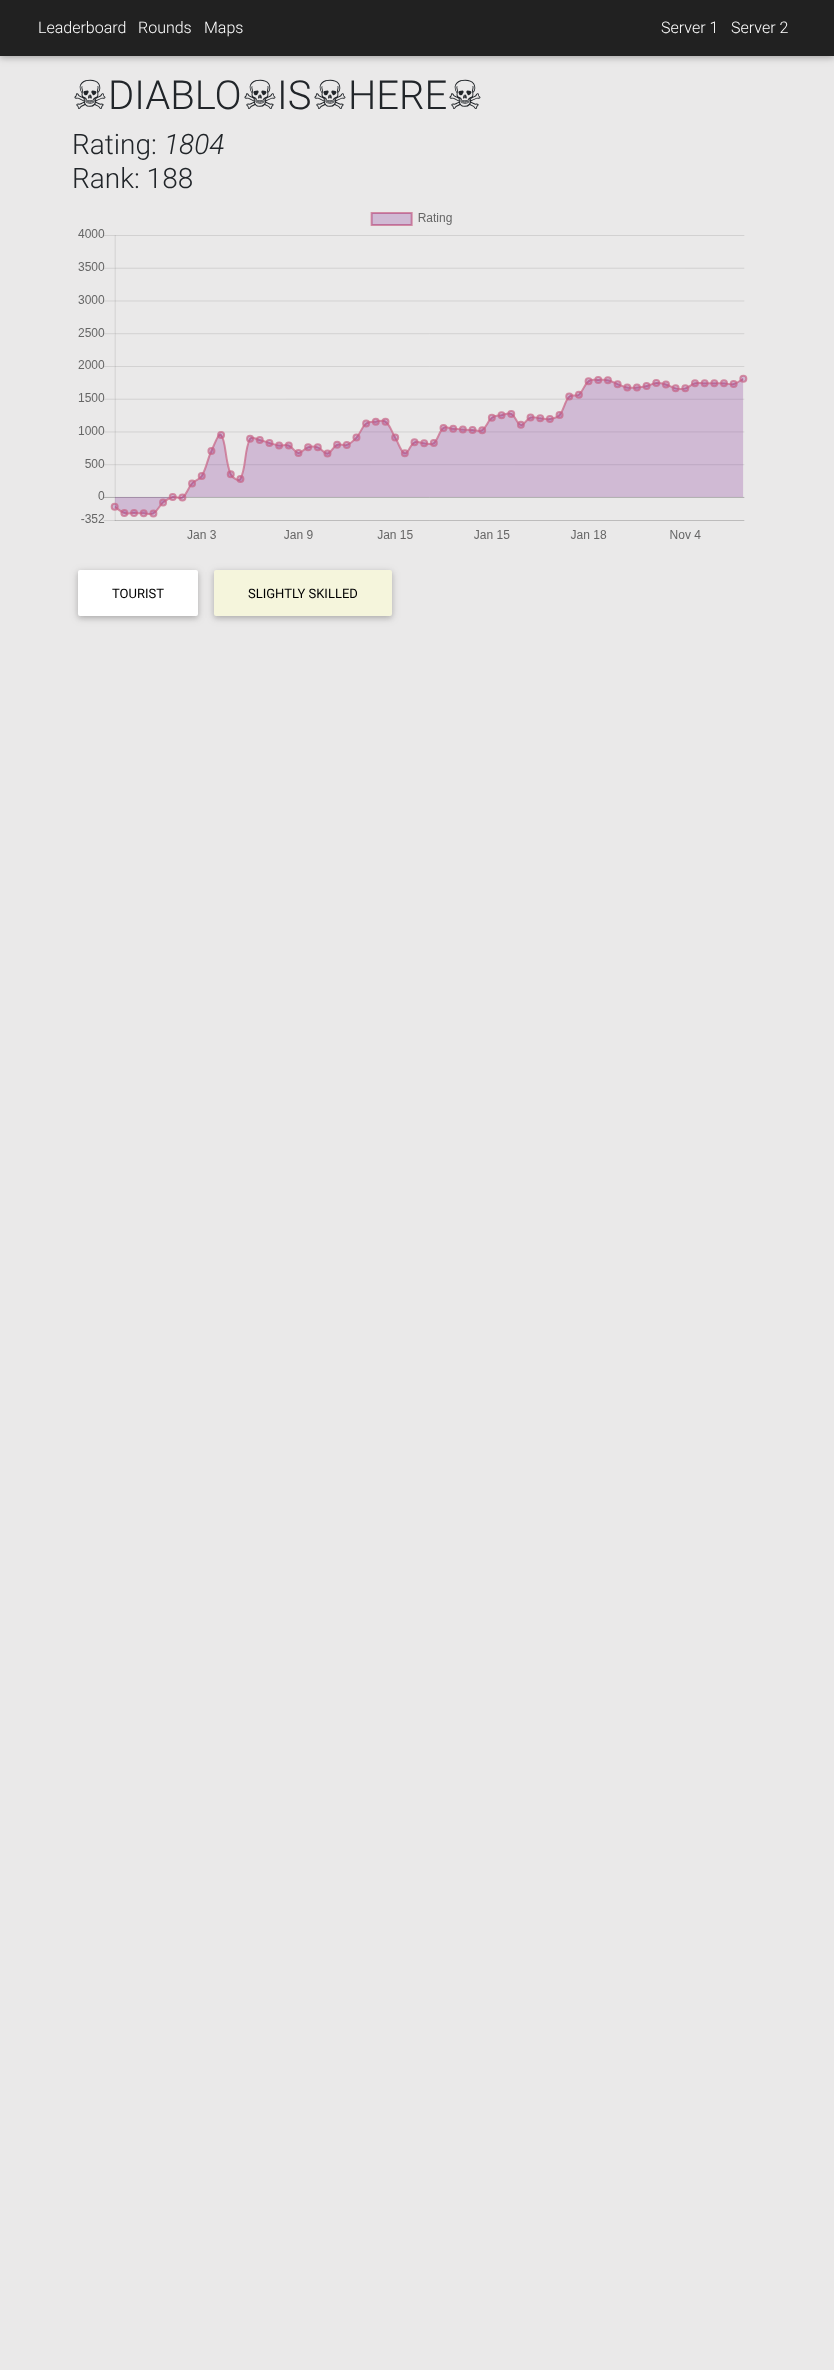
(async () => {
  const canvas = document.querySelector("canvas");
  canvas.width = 834;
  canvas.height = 2370;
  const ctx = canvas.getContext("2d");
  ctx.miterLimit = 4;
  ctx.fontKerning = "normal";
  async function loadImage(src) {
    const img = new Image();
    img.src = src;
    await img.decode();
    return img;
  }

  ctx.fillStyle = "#eae9e9";
  ctx.fillRect(0, 0, 834, 2370);
  ctx.fillStyle = "rgba(0, 0, 0, 0.12)";
  ctx.filter = "blur(5px)";
  ctx.beginPath();
  ctx.rect(0, 2, 834, 56);
  ctx.fill();
  ctx.filter = "none";
  ctx.fillStyle = "rgba(0, 0, 0, 0.16)";
  ctx.filter = "blur(2.5px)";
  ctx.beginPath();
  ctx.rect(0, 2, 834, 56);
  ctx.fill();
  ctx.filter = "none";
  ctx.fillStyle = "#212121";
  ctx.fillRect(0, 0, 834, 56);
  ctx.drawImage(await loadImage("img/1.png"), 78, 212, 670, 327);
  ctx.fillStyle = "rgba(0, 0, 0, 0.12)";
  ctx.filter = "blur(5px)";
  ctx.beginPath();
  ctx.roundRect(78, 572, 120, 46, 2);
  ctx.fill();
  ctx.filter = "none";
  ctx.fillStyle = "rgba(0, 0, 0, 0.16)";
  ctx.filter = "blur(2.5px)";
  ctx.beginPath();
  ctx.roundRect(78, 572, 120, 46, 2);
  ctx.fill();
  ctx.filter = "none";
  ctx.fillStyle = "#ffffff";
  ctx.beginPath();
  ctx.roundRect(78, 570, 120, 46, 2);
  ctx.fill();
  ctx.fillStyle = "rgba(0, 0, 0, 0.12)";
  ctx.filter = "blur(5px)";
  ctx.beginPath();
  ctx.roundRect(214, 572, 178, 46, 2);
  ctx.fill();
  ctx.filter = "none";
  ctx.fillStyle = "rgba(0, 0, 0, 0.16)";
  ctx.filter = "blur(2.5px)";
  ctx.beginPath();
  ctx.roundRect(214, 572, 178, 46, 2);
  ctx.fill();
  ctx.filter = "none";
  ctx.fillStyle = "#f5f5dc";
  ctx.beginPath();
  ctx.roundRect(214, 570, 178, 46, 2);
  ctx.fill();
  ctx.font = "300 16px Roboto";
  ctx.fillStyle = "#ffffff";
  for (const [text, x, y] of [
    ["Leaderboard", 38, 33],
    ["Rounds", 138, 33],
    ["Maps", 204, 33],
    ["Server 1", 661, 33],
    ["Server 2", 731, 33],
  ]) {
    ctx.fillText(text, x, y);
  }
  ctx.font = "40px DejaVu Sans";
  ctx.fillStyle = "#212529";
  ctx.fillText("☠", 72, 109);
  ctx.font = "300 40px Roboto";
  ctx.fillText("DIABLO", 108, 109);
  ctx.font = "40px DejaVu Sans";
  ctx.fillText("☠", 242, 109);
  ctx.font = "300 40px Roboto";
  ctx.fillText("IS", 277, 109);
  ctx.font = "40px DejaVu Sans";
  ctx.fillText("☠", 312, 109);
  ctx.font = "300 40px Roboto";
  ctx.fillText("HERE", 348, 109);
  ctx.font = "40px DejaVu Sans";
  ctx.fillText("☠", 447, 109);
  ctx.font = "300 28px Roboto";
  ctx.fillText("Rating:", 72, 154);
  ctx.font = "italic 300 28px Roboto";
  ctx.fillText("1804", 164, 154);
  ctx.font = "300 28px Roboto";
  ctx.fillText("Rank: 188", 72, 188);
  ctx.font = "13px Roboto";
  ctx.fillStyle = "#000000";
  ctx.fillText("TOURIST", 112, 598);
  ctx.fillText("SLIGHTLY SKILLED", 248, 598);
})();
